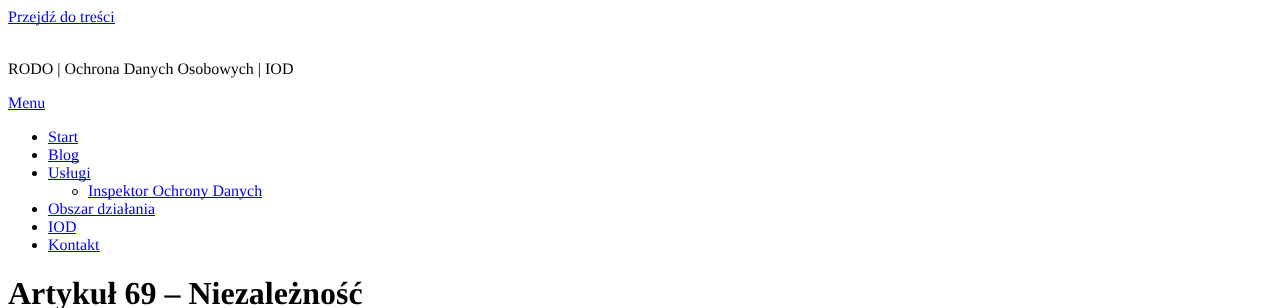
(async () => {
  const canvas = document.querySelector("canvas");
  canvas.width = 1281;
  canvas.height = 308;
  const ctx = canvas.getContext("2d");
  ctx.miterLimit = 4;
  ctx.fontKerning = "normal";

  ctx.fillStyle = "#ffffff";
  ctx.fillRect(0, 0, 1281, 308);
  ctx.fillStyle = "#0000ee";
  ctx.fillRect(8, 23, 107, 1);
  ctx.fillRect(8, 109, 37, 1);
  ctx.fillStyle = "#000000";
  ctx.beginPath();
  ctx.arc(34.5, 137.5, 2.5, 0, Math.PI * 2);
  ctx.fill();
  ctx.fillStyle = "#0000ee";
  ctx.fillRect(48, 143, 30, 1);
  ctx.fillStyle = "#000000";
  ctx.beginPath();
  ctx.arc(34.5, 155.5, 2.5, 0, Math.PI * 2);
  ctx.fill();
  ctx.fillStyle = "#0000ee";
  ctx.fillRect(48, 161, 31, 1);
  ctx.fillStyle = "#000000";
  ctx.beginPath();
  ctx.arc(34.5, 173.5, 2.5, 0, Math.PI * 2);
  ctx.fill();
  ctx.fillStyle = "#0000ee";
  ctx.fillRect(48, 179, 43, 1);
  ctx.beginPath();
  ctx.arc(75, 192, 2.5, 0, Math.PI * 2);
  ctx.strokeStyle = "#000000";
  ctx.stroke();
  ctx.fillRect(88, 197, 174, 1);
  ctx.fillStyle = "#000000";
  ctx.beginPath();
  ctx.arc(34.5, 209.5, 2.5, 0, Math.PI * 2);
  ctx.fill();
  ctx.fillStyle = "#0000ee";
  ctx.fillRect(48, 215, 107, 1);
  ctx.fillStyle = "#000000";
  ctx.beginPath();
  ctx.arc(34.5, 227.5, 2.5, 0, Math.PI * 2);
  ctx.fill();
  ctx.fillStyle = "#0000ee";
  ctx.fillRect(48, 233, 28, 1);
  ctx.fillStyle = "#000000";
  ctx.beginPath();
  ctx.arc(34.5, 245.5, 2.5, 0, Math.PI * 2);
  ctx.fill();
  ctx.fillStyle = "#0000ee";
  ctx.fillRect(48, 251, 52, 1);
  ctx.font = "16px Liberation Serif";
  ctx.fillText("Przejdź do treści", 8, 22);
  ctx.fillStyle = "#000000";
  ctx.fillText("RODO | Ochrona Danych Osobowych | IOD", 8, 74);
  ctx.fillStyle = "#0000ee";
  for (const [text, x, y] of [
    ["Menu", 8, 108],
    ["Start", 48, 142],
    ["Blog", 48, 160],
    ["Usługi", 48, 178],
    ["Inspektor Ochrony Danych", 88, 196],
    ["Obszar działania", 48, 214],
    ["IOD", 48, 232],
    ["Kontakt", 48, 250],
  ]) {
    ctx.fillText(text, x, y);
  }
  ctx.font = "bold 32px Liberation Serif";
  ctx.fillStyle = "#000000";
  ctx.fillText("Artykuł 69 – Niezależność", 8, 304);
})();
